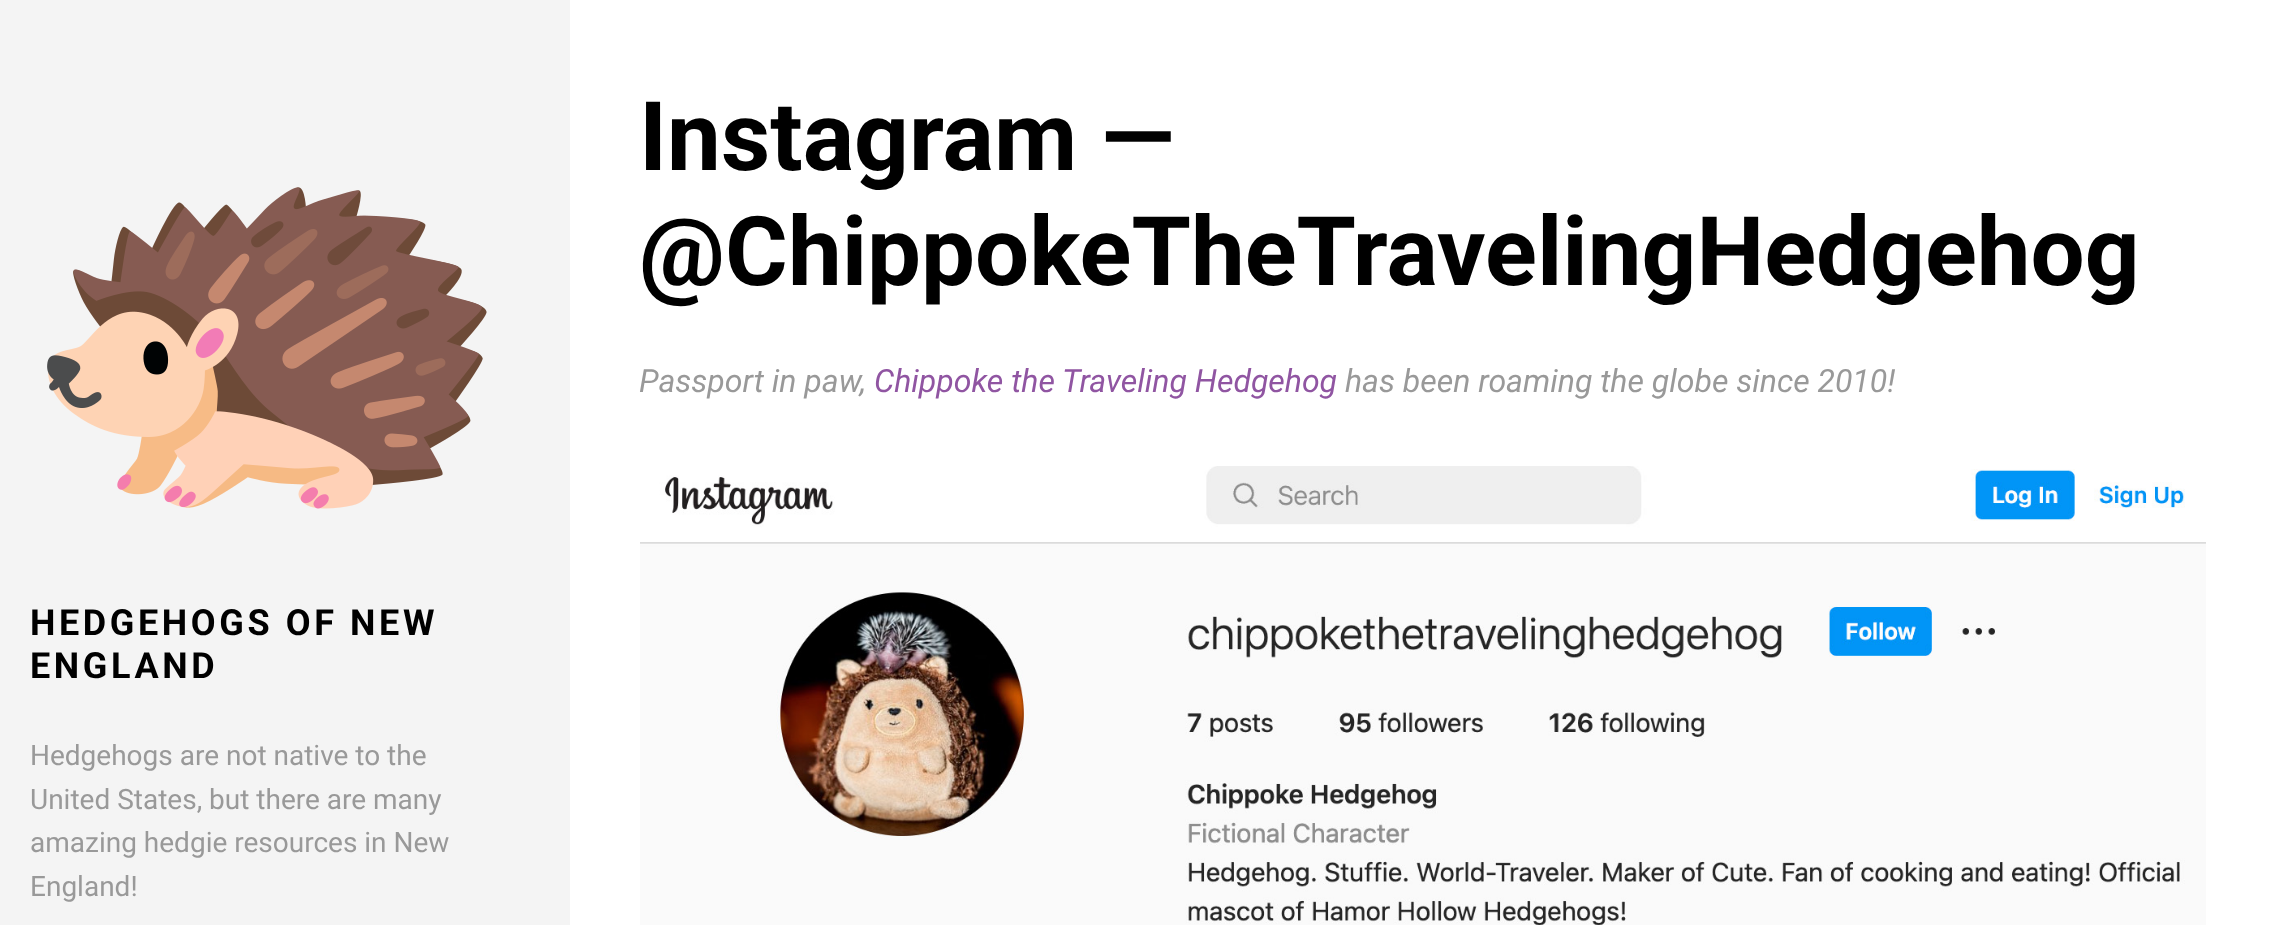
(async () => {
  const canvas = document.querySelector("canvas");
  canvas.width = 2275;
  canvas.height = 925;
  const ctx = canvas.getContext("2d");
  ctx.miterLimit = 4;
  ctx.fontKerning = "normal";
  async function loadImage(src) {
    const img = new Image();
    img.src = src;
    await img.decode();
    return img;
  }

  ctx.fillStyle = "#f4f4f4";
  ctx.fillRect(0, 0, 2275, 925);
  ctx.fillStyle = "#ffffff";
  ctx.fillRect(570, 0, 1705, 925);
  ctx.drawImage(await loadImage("img/1.png"), 640, 466, 1566, 459);
  ctx.drawImage(await loadImage("img/2.png"), 47, 187, 440, 322);
  ctx.font = "bold 96px Roboto";
  ctx.fillStyle = "#000000";
  ctx.fillText("Instagram —", 639, 170);
  ctx.fillText("@ChippokeTheTravelingHedgehog", 639, 285);
  ctx.font = "italic 32px Roboto";
  ctx.fillStyle = "#999999";
  ctx.fillText("Passport in paw,", 639, 392);
  ctx.fillStyle = "#9055a2";
  ctx.fillText("Chippoke the Traveling Hedgehog", 874, 392);
  ctx.fillStyle = "#999999";
  ctx.fillText("has been roaming the globe since 2010!", 1345, 392);
  ctx.letterSpacing = "3.6px";
  ctx.font = "bold 36px Roboto";
  ctx.fillStyle = "#000000";
  ctx.fillText("HEDGEHOGS OF NEW", 30, 635);
  ctx.fillText("ENGLAND", 30, 678);
  ctx.letterSpacing = "0px";
  ctx.font = "28px Roboto";
  ctx.fillStyle = "#999999";
  for (const [text, x, y] of [
    ["Hedgehogs are not native to the", 30, 765],
    ["United States, but there are many", 30, 809],
    ["amazing hedgie resources in New", 30, 852],
    ["England!", 30, 896],
  ]) {
    ctx.fillText(text, x, y);
  }
})();
